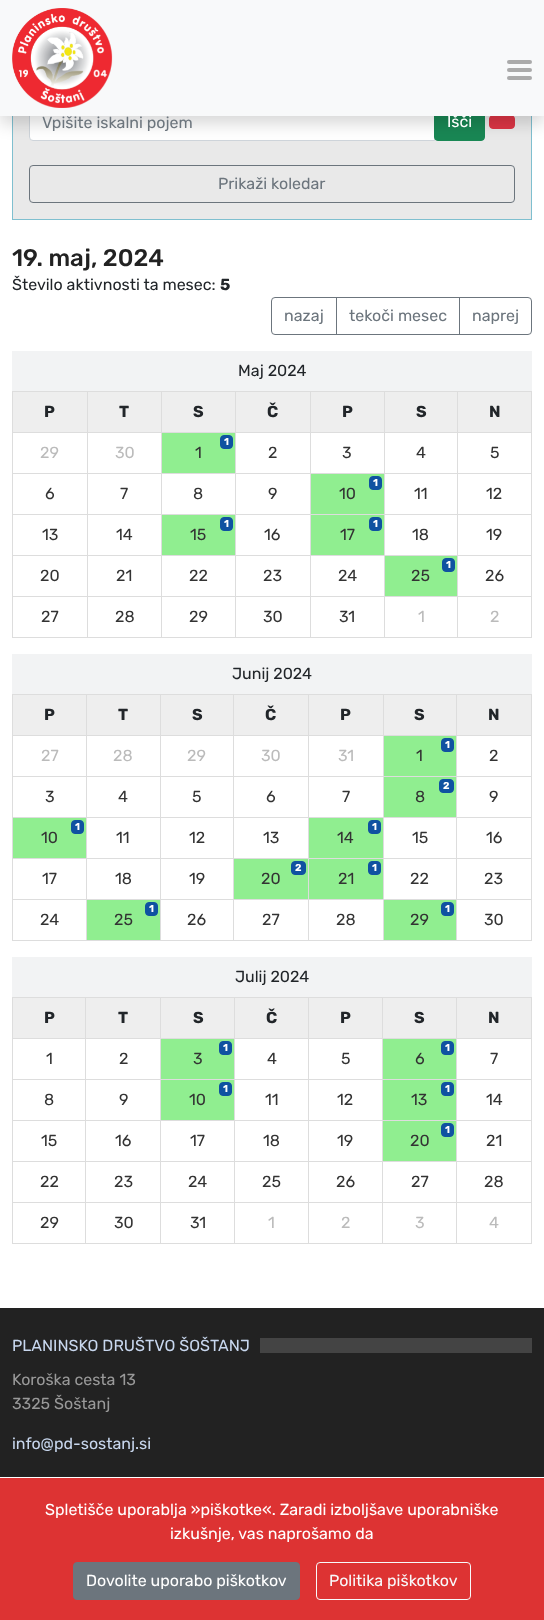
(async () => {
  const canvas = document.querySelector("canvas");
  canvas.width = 544;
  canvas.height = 1620;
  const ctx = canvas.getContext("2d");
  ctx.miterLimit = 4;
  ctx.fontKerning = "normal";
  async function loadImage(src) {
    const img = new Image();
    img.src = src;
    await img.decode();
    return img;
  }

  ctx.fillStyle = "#ffffff";
  ctx.fillRect(0, 0, 544, 1620);
  ctx.fillStyle = "#e9e9e9";
  ctx.fillRect(13, 116, 518, 103);
  ctx.strokeStyle = "#7fbfcf";
  ctx.strokeRect(12.5, 36.5, 519, 183);
  ctx.fillStyle = "#ffffff";
  ctx.beginPath();
  ctx.roundRect(29.5, 103.5, 405, 37, [3.5, 0, 0, 3.5]);
  ctx.fill();
  ctx.strokeStyle = "#ced4da";
  ctx.stroke();
  ctx.fillStyle = "#198754";
  ctx.beginPath();
  ctx.roundRect(434.5, 103.5, 50, 37, 3.5);
  ctx.fill();
  ctx.strokeStyle = "#198754";
  ctx.stroke();
  ctx.fillStyle = "#dc3545";
  ctx.beginPath();
  ctx.roundRect(489.5, 115.5, 25, 13, 3.5);
  ctx.fill();
  ctx.strokeStyle = "#dc3545";
  ctx.stroke();
  ctx.fillStyle = "rgba(0, 0, 0, 0.15)";
  ctx.filter = "blur(8px)";
  ctx.beginPath();
  ctx.rect(0, 8, 544, 116);
  ctx.fill();
  ctx.filter = "none";
  ctx.beginPath();
  ctx.roundRect(29.5, 165.5, 485, 37, 3.5);
  ctx.strokeStyle = "#6c757d";
  ctx.stroke();
  ctx.beginPath();
  ctx.roundRect(271.5, 297.5, 65, 37, [3.5, 0, 0, 3.5]);
  ctx.stroke();
  ctx.strokeRect(336.5, 297.5, 123, 37);
  ctx.beginPath();
  ctx.roundRect(459.5, 297.5, 72, 37, [0, 3.5, 3.5, 0]);
  ctx.stroke();
  for (const [x, y, w, h, color] of [
    [12, 351, 520, 40, "#f2f3f4"],
    [12, 391, 520, 1, "#dddddd"],
    [531, 391, 1, 247, "#dddddd"],
    [12, 637, 520, 1, "#dddddd"],
    [12, 391, 1, 247, "#dddddd"],
    [13, 392, 74, 40, "#eeeeee"],
    [88, 392, 73, 40, "#eeeeee"],
    [457, 432, 75, 1, "#dddddd"],
    [457, 473, 75, 1, "#dddddd"],
    [457, 514, 75, 1, "#dddddd"],
    [457, 555, 75, 1, "#dddddd"],
    [457, 596, 75, 1, "#dddddd"],
    [457, 596, 1, 42, "#dddddd"],
    [384, 596, 74, 1, "#dddddd"],
    [457, 555, 1, 42, "#dddddd"],
    [384, 555, 74, 1, "#dddddd"],
    [457, 514, 1, 42, "#dddddd"],
    [384, 514, 74, 1, "#dddddd"],
    [457, 473, 1, 42, "#dddddd"],
    [384, 473, 74, 1, "#dddddd"],
    [457, 432, 1, 42, "#dddddd"],
    [384, 432, 74, 1, "#dddddd"],
    [384, 596, 1, 42, "#dddddd"],
    [310, 596, 75, 1, "#dddddd"],
    [384, 555, 1, 42, "#dddddd"],
    [310, 555, 75, 1, "#dddddd"],
    [384, 514, 1, 42, "#dddddd"],
    [310, 514, 75, 1, "#dddddd"],
    [384, 473, 1, 42, "#dddddd"],
    [310, 473, 75, 1, "#dddddd"],
    [384, 432, 1, 42, "#dddddd"],
    [310, 432, 75, 1, "#dddddd"],
    [310, 596, 1, 42, "#dddddd"],
    [235, 596, 76, 1, "#dddddd"],
    [310, 555, 1, 42, "#dddddd"],
    [235, 555, 76, 1, "#dddddd"],
    [310, 514, 1, 42, "#dddddd"],
    [235, 514, 76, 1, "#dddddd"],
    [310, 473, 1, 42, "#dddddd"],
    [235, 473, 76, 1, "#dddddd"],
    [310, 432, 1, 42, "#dddddd"],
    [235, 432, 76, 1, "#dddddd"],
    [235, 596, 1, 42, "#dddddd"],
    [161, 596, 75, 1, "#dddddd"],
    [235, 555, 1, 42, "#dddddd"],
    [161, 555, 75, 1, "#dddddd"],
    [235, 514, 1, 42, "#dddddd"],
    [161, 514, 75, 1, "#dddddd"],
    [235, 473, 1, 42, "#dddddd"],
    [161, 473, 75, 1, "#dddddd"],
    [235, 432, 1, 42, "#dddddd"],
    [161, 432, 75, 1, "#dddddd"],
    [161, 596, 1, 42, "#dddddd"],
    [87, 596, 75, 1, "#dddddd"],
    [161, 555, 1, 42, "#dddddd"],
    [87, 555, 75, 1, "#dddddd"],
    [161, 514, 1, 42, "#dddddd"],
    [87, 514, 75, 1, "#dddddd"],
    [161, 473, 1, 42, "#dddddd"],
    [87, 473, 75, 1, "#dddddd"],
    [161, 432, 1, 42, "#dddddd"],
    [87, 432, 75, 1, "#dddddd"],
    [87, 596, 1, 42, "#dddddd"],
    [12, 596, 76, 1, "#dddddd"],
    [87, 555, 1, 42, "#dddddd"],
    [12, 555, 76, 1, "#dddddd"],
    [87, 514, 1, 42, "#dddddd"],
    [12, 514, 76, 1, "#dddddd"],
    [87, 473, 1, 42, "#dddddd"],
    [12, 473, 76, 1, "#dddddd"],
    [87, 432, 1, 42, "#dddddd"],
    [12, 432, 76, 1, "#dddddd"],
    [87, 391, 1, 42, "#dddddd"],
    [162, 392, 73, 40, "#eeeeee"],
    [161, 391, 1, 42, "#dddddd"],
    [236, 392, 74, 40, "#eeeeee"],
    [235, 391, 1, 42, "#dddddd"],
    [311, 392, 73, 40, "#eeeeee"],
    [310, 391, 1, 42, "#dddddd"],
    [385, 392, 72, 40, "#eeeeee"],
    [384, 391, 1, 42, "#dddddd"],
    [458, 392, 73, 40, "#eeeeee"],
    [457, 391, 1, 42, "#dddddd"],
    [162, 433, 73, 40, "#90ee90"],
  ]) {
    ctx.fillStyle = color;
    ctx.fillRect(x, y, w, h);
  }
  ctx.fillStyle = "#0f52a1";
  ctx.beginPath();
  ctx.roundRect(220.5, 435.5, 12, 13, 3.5);
  ctx.fill();
  ctx.strokeStyle = "#0f52a1";
  ctx.stroke();
  ctx.fillStyle = "#90ee90";
  ctx.fillRect(311, 474, 73, 40);
  ctx.fillStyle = "#0f52a1";
  ctx.beginPath();
  ctx.roundRect(369.5, 476.5, 12, 13, 3.5);
  ctx.fill();
  ctx.stroke();
  ctx.fillStyle = "#90ee90";
  ctx.fillRect(162, 515, 73, 40);
  ctx.fillStyle = "#0f52a1";
  ctx.beginPath();
  ctx.roundRect(220.5, 517.5, 12, 13, 3.5);
  ctx.fill();
  ctx.stroke();
  ctx.fillStyle = "#90ee90";
  ctx.fillRect(311, 515, 73, 40);
  ctx.fillStyle = "#0f52a1";
  ctx.beginPath();
  ctx.roundRect(369.5, 517.5, 12, 13, 3.5);
  ctx.fill();
  ctx.stroke();
  ctx.fillStyle = "#90ee90";
  ctx.fillRect(385, 556, 72, 40);
  ctx.fillStyle = "#0f52a1";
  ctx.beginPath();
  ctx.roundRect(442.5, 558.5, 12, 13, 3.5);
  ctx.fill();
  ctx.stroke();
  for (const [x, y, w, h, color] of [
    [12, 654, 520, 40, "#f2f3f4"],
    [12, 694, 520, 1, "#dddddd"],
    [531, 694, 1, 247, "#dddddd"],
    [12, 940, 520, 1, "#dddddd"],
    [12, 694, 1, 247, "#dddddd"],
    [13, 695, 73, 40, "#eeeeee"],
    [87, 695, 73, 40, "#eeeeee"],
    [456, 735, 76, 1, "#dddddd"],
    [456, 776, 76, 1, "#dddddd"],
    [456, 817, 76, 1, "#dddddd"],
    [456, 858, 76, 1, "#dddddd"],
    [456, 899, 76, 1, "#dddddd"],
    [456, 899, 1, 42, "#dddddd"],
    [383, 899, 74, 1, "#dddddd"],
    [456, 858, 1, 42, "#dddddd"],
    [383, 858, 74, 1, "#dddddd"],
    [456, 817, 1, 42, "#dddddd"],
    [383, 817, 74, 1, "#dddddd"],
    [456, 776, 1, 42, "#dddddd"],
    [383, 776, 74, 1, "#dddddd"],
    [456, 735, 1, 42, "#dddddd"],
    [383, 735, 74, 1, "#dddddd"],
    [383, 899, 1, 42, "#dddddd"],
    [308, 899, 76, 1, "#dddddd"],
    [383, 858, 1, 42, "#dddddd"],
    [308, 858, 76, 1, "#dddddd"],
    [383, 817, 1, 42, "#dddddd"],
    [308, 817, 76, 1, "#dddddd"],
    [383, 776, 1, 42, "#dddddd"],
    [308, 776, 76, 1, "#dddddd"],
    [383, 735, 1, 42, "#dddddd"],
    [308, 735, 76, 1, "#dddddd"],
    [308, 899, 1, 42, "#dddddd"],
    [233, 899, 76, 1, "#dddddd"],
    [308, 858, 1, 42, "#dddddd"],
    [233, 858, 76, 1, "#dddddd"],
    [308, 817, 1, 42, "#dddddd"],
    [233, 817, 76, 1, "#dddddd"],
    [308, 776, 1, 42, "#dddddd"],
    [233, 776, 76, 1, "#dddddd"],
    [308, 735, 1, 42, "#dddddd"],
    [233, 735, 76, 1, "#dddddd"],
    [233, 899, 1, 42, "#dddddd"],
    [160, 899, 74, 1, "#dddddd"],
    [233, 858, 1, 42, "#dddddd"],
    [160, 858, 74, 1, "#dddddd"],
    [233, 817, 1, 42, "#dddddd"],
    [160, 817, 74, 1, "#dddddd"],
    [233, 776, 1, 42, "#dddddd"],
    [160, 776, 74, 1, "#dddddd"],
    [233, 735, 1, 42, "#dddddd"],
    [160, 735, 74, 1, "#dddddd"],
    [160, 899, 1, 42, "#dddddd"],
    [86, 899, 75, 1, "#dddddd"],
    [160, 858, 1, 42, "#dddddd"],
    [86, 858, 75, 1, "#dddddd"],
    [160, 817, 1, 42, "#dddddd"],
    [86, 817, 75, 1, "#dddddd"],
    [160, 776, 1, 42, "#dddddd"],
    [86, 776, 75, 1, "#dddddd"],
    [160, 735, 1, 42, "#dddddd"],
    [86, 735, 75, 1, "#dddddd"],
    [86, 899, 1, 42, "#dddddd"],
    [12, 899, 75, 1, "#dddddd"],
    [86, 858, 1, 42, "#dddddd"],
    [12, 858, 75, 1, "#dddddd"],
    [86, 817, 1, 42, "#dddddd"],
    [12, 817, 75, 1, "#dddddd"],
    [86, 776, 1, 42, "#dddddd"],
    [12, 776, 75, 1, "#dddddd"],
    [86, 735, 1, 42, "#dddddd"],
    [12, 735, 75, 1, "#dddddd"],
    [86, 694, 1, 42, "#dddddd"],
    [161, 695, 72, 40, "#eeeeee"],
    [160, 694, 1, 42, "#dddddd"],
    [234, 695, 74, 40, "#eeeeee"],
    [233, 694, 1, 42, "#dddddd"],
    [309, 695, 74, 40, "#eeeeee"],
    [308, 694, 1, 42, "#dddddd"],
    [384, 695, 72, 40, "#eeeeee"],
    [383, 694, 1, 42, "#dddddd"],
    [457, 695, 74, 40, "#eeeeee"],
    [456, 694, 1, 42, "#dddddd"],
    [384, 736, 72, 40, "#90ee90"],
  ]) {
    ctx.fillStyle = color;
    ctx.fillRect(x, y, w, h);
  }
  ctx.fillStyle = "#0f52a1";
  ctx.beginPath();
  ctx.roundRect(441.5, 738.5, 12, 13, 3.5);
  ctx.fill();
  ctx.stroke();
  ctx.fillStyle = "#90ee90";
  ctx.fillRect(384, 777, 72, 40);
  ctx.fillStyle = "#0f52a1";
  ctx.beginPath();
  ctx.roundRect(439.5, 779.5, 14, 13, 3.5);
  ctx.fill();
  ctx.stroke();
  ctx.fillStyle = "#90ee90";
  ctx.fillRect(13, 818, 73, 40);
  ctx.fillStyle = "#0f52a1";
  ctx.beginPath();
  ctx.roundRect(71.5, 820.5, 12, 13, 3.5);
  ctx.fill();
  ctx.stroke();
  ctx.fillStyle = "#90ee90";
  ctx.fillRect(309, 818, 74, 40);
  ctx.fillStyle = "#0f52a1";
  ctx.beginPath();
  ctx.roundRect(368.5, 820.5, 12, 13, 3.5);
  ctx.fill();
  ctx.stroke();
  ctx.fillStyle = "#90ee90";
  ctx.fillRect(234, 859, 74, 40);
  ctx.fillStyle = "#0f52a1";
  ctx.beginPath();
  ctx.roundRect(291.5, 861.5, 14, 13, 3.5);
  ctx.fill();
  ctx.stroke();
  ctx.fillStyle = "#90ee90";
  ctx.fillRect(309, 859, 74, 40);
  ctx.fillStyle = "#0f52a1";
  ctx.beginPath();
  ctx.roundRect(368.5, 861.5, 12, 13, 3.5);
  ctx.fill();
  ctx.stroke();
  ctx.fillStyle = "#90ee90";
  ctx.fillRect(87, 900, 73, 40);
  ctx.fillStyle = "#0f52a1";
  ctx.beginPath();
  ctx.roundRect(145.5, 902.5, 12, 13, 3.5);
  ctx.fill();
  ctx.stroke();
  ctx.fillStyle = "#90ee90";
  ctx.fillRect(384, 900, 72, 40);
  ctx.fillStyle = "#0f52a1";
  ctx.beginPath();
  ctx.roundRect(441.5, 902.5, 12, 13, 3.5);
  ctx.fill();
  ctx.stroke();
  for (const [x, y, w, h, color] of [
    [12, 957, 520, 40, "#f2f3f4"],
    [12, 997, 520, 1, "#dddddd"],
    [531, 997, 1, 247, "#dddddd"],
    [12, 1243, 520, 1, "#dddddd"],
    [12, 997, 1, 247, "#dddddd"],
    [13, 998, 72, 40, "#eeeeee"],
    [86, 998, 74, 40, "#eeeeee"],
    [456, 1038, 76, 1, "#dddddd"],
    [456, 1079, 76, 1, "#dddddd"],
    [456, 1120, 76, 1, "#dddddd"],
    [456, 1161, 76, 1, "#dddddd"],
    [456, 1202, 76, 1, "#dddddd"],
    [456, 1202, 1, 42, "#dddddd"],
    [382, 1202, 75, 1, "#dddddd"],
    [456, 1161, 1, 42, "#dddddd"],
    [382, 1161, 75, 1, "#dddddd"],
    [456, 1120, 1, 42, "#dddddd"],
    [382, 1120, 75, 1, "#dddddd"],
    [456, 1079, 1, 42, "#dddddd"],
    [382, 1079, 75, 1, "#dddddd"],
    [456, 1038, 1, 42, "#dddddd"],
    [382, 1038, 75, 1, "#dddddd"],
    [382, 1202, 1, 42, "#dddddd"],
    [308, 1202, 75, 1, "#dddddd"],
    [382, 1161, 1, 42, "#dddddd"],
    [308, 1161, 75, 1, "#dddddd"],
    [382, 1120, 1, 42, "#dddddd"],
    [308, 1120, 75, 1, "#dddddd"],
    [382, 1079, 1, 42, "#dddddd"],
    [308, 1079, 75, 1, "#dddddd"],
    [382, 1038, 1, 42, "#dddddd"],
    [308, 1038, 75, 1, "#dddddd"],
    [308, 1202, 1, 42, "#dddddd"],
    [234, 1202, 75, 1, "#dddddd"],
    [308, 1161, 1, 42, "#dddddd"],
    [234, 1161, 75, 1, "#dddddd"],
    [308, 1120, 1, 42, "#dddddd"],
    [234, 1120, 75, 1, "#dddddd"],
    [308, 1079, 1, 42, "#dddddd"],
    [234, 1079, 75, 1, "#dddddd"],
    [308, 1038, 1, 42, "#dddddd"],
    [234, 1038, 75, 1, "#dddddd"],
    [234, 1202, 1, 42, "#dddddd"],
    [160, 1202, 75, 1, "#dddddd"],
    [234, 1161, 1, 42, "#dddddd"],
    [160, 1161, 75, 1, "#dddddd"],
    [234, 1120, 1, 42, "#dddddd"],
    [160, 1120, 75, 1, "#dddddd"],
    [234, 1079, 1, 42, "#dddddd"],
    [160, 1079, 75, 1, "#dddddd"],
    [234, 1038, 1, 42, "#dddddd"],
    [160, 1038, 75, 1, "#dddddd"],
    [160, 1202, 1, 42, "#dddddd"],
    [85, 1202, 76, 1, "#dddddd"],
    [160, 1161, 1, 42, "#dddddd"],
    [85, 1161, 76, 1, "#dddddd"],
    [160, 1120, 1, 42, "#dddddd"],
    [85, 1120, 76, 1, "#dddddd"],
    [160, 1079, 1, 42, "#dddddd"],
    [85, 1079, 76, 1, "#dddddd"],
    [160, 1038, 1, 42, "#dddddd"],
    [85, 1038, 76, 1, "#dddddd"],
    [85, 1202, 1, 42, "#dddddd"],
    [12, 1202, 74, 1, "#dddddd"],
    [85, 1161, 1, 42, "#dddddd"],
    [12, 1161, 74, 1, "#dddddd"],
    [85, 1120, 1, 42, "#dddddd"],
    [12, 1120, 74, 1, "#dddddd"],
    [85, 1079, 1, 42, "#dddddd"],
    [12, 1079, 74, 1, "#dddddd"],
    [85, 1038, 1, 42, "#dddddd"],
    [12, 1038, 74, 1, "#dddddd"],
    [85, 997, 1, 42, "#dddddd"],
    [161, 998, 73, 40, "#eeeeee"],
    [160, 997, 1, 42, "#dddddd"],
    [235, 998, 73, 40, "#eeeeee"],
    [234, 997, 1, 42, "#dddddd"],
    [309, 998, 73, 40, "#eeeeee"],
    [308, 997, 1, 42, "#dddddd"],
    [383, 998, 73, 40, "#eeeeee"],
    [382, 997, 1, 42, "#dddddd"],
    [457, 998, 74, 40, "#eeeeee"],
    [456, 997, 1, 42, "#dddddd"],
    [161, 1039, 73, 40, "#90ee90"],
  ]) {
    ctx.fillStyle = color;
    ctx.fillRect(x, y, w, h);
  }
  ctx.fillStyle = "#0f52a1";
  ctx.beginPath();
  ctx.roundRect(219.5, 1041.5, 12, 13, 3.5);
  ctx.fill();
  ctx.stroke();
  ctx.fillStyle = "#90ee90";
  ctx.fillRect(383, 1039, 73, 40);
  ctx.fillStyle = "#0f52a1";
  ctx.beginPath();
  ctx.roundRect(441.5, 1041.5, 12, 13, 3.5);
  ctx.fill();
  ctx.stroke();
  ctx.fillStyle = "#90ee90";
  ctx.fillRect(161, 1080, 73, 40);
  ctx.fillStyle = "#0f52a1";
  ctx.beginPath();
  ctx.roundRect(219.5, 1082.5, 12, 13, 3.5);
  ctx.fill();
  ctx.stroke();
  ctx.fillStyle = "#90ee90";
  ctx.fillRect(383, 1080, 73, 40);
  ctx.fillStyle = "#0f52a1";
  ctx.beginPath();
  ctx.roundRect(441.5, 1082.5, 12, 13, 3.5);
  ctx.fill();
  ctx.stroke();
  ctx.fillStyle = "#90ee90";
  ctx.fillRect(383, 1121, 73, 40);
  ctx.fillStyle = "#0f52a1";
  ctx.beginPath();
  ctx.roundRect(441.5, 1123.5, 12, 13, 3.5);
  ctx.fill();
  ctx.stroke();
  for (const [x, y, w, h, color] of [
    [0, 1308, 544, 169, "#222222"],
    [260, 1338, 272, 15, "#444444"],
    [0, 1478, 544, 142, "#dd3333"],
  ]) {
    ctx.fillStyle = color;
    ctx.fillRect(x, y, w, h);
  }
  ctx.fillStyle = "#6c757d";
  ctx.beginPath();
  ctx.roundRect(73.5, 1562.5, 226, 37, 3.5);
  ctx.fill();
  ctx.strokeStyle = "#6c757d";
  ctx.stroke();
  ctx.beginPath();
  ctx.roundRect(316.5, 1562.5, 154, 37, 3.5);
  ctx.strokeStyle = "#f8f9fa";
  ctx.stroke();
  ctx.font = "16px Rubik";
  ctx.fillText("Vpišite iskalni pojem", 42, 128);
  ctx.fillStyle = "#ffffff";
  ctx.fillText("Išči", 447, 127);
  ctx.fillStyle = "#f8f9fa";
  ctx.fillRect(0, 0, 544, 116);
  ctx.fillStyle = "#aaaaaa";
  ctx.beginPath();
  ctx.roundRect(507, 76, 25, 4, 2);
  ctx.fill();
  ctx.beginPath();
  ctx.roundRect(507, 68, 25, 4, 2);
  ctx.fill();
  ctx.beginPath();
  ctx.roundRect(507, 60, 25, 4, 2);
  ctx.fill();
  ctx.drawImage(await loadImage("img/1.png"), 12, 8, 101, 100);
  ctx.fillStyle = "#6c757d";
  ctx.fillText("Prikaži koledar", 218, 189);
  ctx.font = "500 24px Rubik";
  ctx.fillStyle = "#222222";
  ctx.fillText("19. maj, 2024", 12, 266);
  ctx.font = "16px Rubik";
  ctx.fillStyle = "#212529";
  ctx.fillText("Število aktivnosti ta mesec:", 12, 290);
  ctx.font = "bold 16px Rubik";
  ctx.fillText("5", 220, 290);
  ctx.font = "16px Rubik";
  ctx.fillStyle = "#6c757d";
  for (const [text, x, y] of [
    ["nazaj", 284, 321],
    ["tekoči mesec", 349, 321],
    ["naprej", 472, 321],
  ]) {
    ctx.fillText(text, x, y);
  }
  ctx.fillStyle = "#212529";
  ctx.fillText("Maj 2024", 238, 376);
  ctx.font = "bold 16px Rubik";
  for (const [text, x, y] of [
    ["P", 44, 417],
    ["T", 119, 417],
    ["S", 193, 417],
    ["Č", 267, 417],
    ["P", 342, 417],
    ["S", 416, 417],
    ["N", 489, 417],
  ]) {
    ctx.fillText(text, x, y);
  }
  ctx.font = "16px Rubik";
  ctx.fillStyle = "#bbbbbb";
  ctx.fillText("29", 40, 458);
  ctx.fillText("30", 115, 458);
  ctx.font = "bold 10px Rubik";
  ctx.fillStyle = "#ffffff";
  ctx.fillText("1", 224, 445);
  ctx.font = "16px Rubik";
  ctx.fillStyle = "#333333";
  for (const [text, x, y] of [
    ["1", 195, 458],
    ["2", 268, 458],
    ["3", 342, 458],
    ["4", 416, 458],
    ["5", 490, 458],
    ["6", 45, 499],
    ["7", 120, 499],
    ["8", 193, 499],
    ["9", 268, 499],
  ]) {
    ctx.fillText(text, x, y);
  }
  ctx.font = "bold 10px Rubik";
  ctx.fillStyle = "#ffffff";
  ctx.fillText("1", 373, 486);
  ctx.font = "16px Rubik";
  ctx.fillStyle = "#333333";
  for (const [text, x, y] of [
    ["10", 339, 499],
    ["11", 414, 499],
    ["12", 486, 499],
    ["13", 42, 540],
    ["14", 116, 540],
  ]) {
    ctx.fillText(text, x, y);
  }
  ctx.font = "bold 10px Rubik";
  ctx.fillStyle = "#ffffff";
  ctx.fillText("1", 224, 527);
  ctx.font = "16px Rubik";
  ctx.fillStyle = "#333333";
  ctx.fillText("15", 190, 540);
  ctx.fillText("16", 264, 540);
  ctx.font = "bold 10px Rubik";
  ctx.fillStyle = "#ffffff";
  ctx.fillText("1", 373, 527);
  ctx.font = "16px Rubik";
  ctx.fillStyle = "#333333";
  for (const [text, x, y] of [
    ["17", 340, 540],
    ["18", 412, 540],
    ["19", 486, 540],
    ["20", 40, 581],
    ["21", 116, 581],
    ["22", 189, 581],
    ["23", 263, 581],
    ["24", 338, 581],
  ]) {
    ctx.fillText(text, x, y);
  }
  ctx.font = "bold 10px Rubik";
  ctx.fillStyle = "#ffffff";
  ctx.fillText("1", 446, 568);
  ctx.font = "16px Rubik";
  ctx.fillStyle = "#333333";
  for (const [text, x, y] of [
    ["25", 411, 581],
    ["26", 485, 581],
    ["27", 41, 622],
    ["28", 115, 622],
    ["29", 189, 622],
    ["30", 263, 622],
    ["31", 339, 622],
  ]) {
    ctx.fillText(text, x, y);
  }
  ctx.fillStyle = "#bbbbbb";
  ctx.fillText("1", 418, 622);
  ctx.fillText("2", 490, 622);
  ctx.fillStyle = "#212529";
  ctx.fillText("Junij 2024", 232, 679);
  ctx.font = "bold 16px Rubik";
  for (const [text, x, y] of [
    ["P", 44, 720],
    ["T", 118, 720],
    ["S", 192, 720],
    ["Č", 265, 720],
    ["P", 340, 720],
    ["S", 414, 720],
    ["N", 488, 720],
  ]) {
    ctx.fillText(text, x, y);
  }
  ctx.font = "16px Rubik";
  ctx.fillStyle = "#bbbbbb";
  for (const [text, x, y] of [
    ["27", 41, 761],
    ["28", 113, 761],
    ["29", 187, 761],
    ["30", 261, 761],
    ["31", 338, 761],
  ]) {
    ctx.fillText(text, x, y);
  }
  ctx.font = "bold 10px Rubik";
  ctx.fillStyle = "#ffffff";
  ctx.fillText("1", 445, 748);
  ctx.font = "16px Rubik";
  ctx.fillStyle = "#333333";
  for (const [text, x, y] of [
    ["1", 416, 761],
    ["2", 489, 761],
    ["3", 45, 802],
    ["4", 118, 802],
    ["5", 192, 802],
    ["6", 266, 802],
    ["7", 342, 802],
  ]) {
    ctx.fillText(text, x, y);
  }
  ctx.font = "bold 10px Rubik";
  ctx.fillStyle = "#ffffff";
  ctx.fillText("2", 443, 789);
  ctx.font = "16px Rubik";
  ctx.fillStyle = "#333333";
  ctx.fillText("8", 415, 802);
  ctx.fillText("9", 489, 802);
  ctx.font = "bold 10px Rubik";
  ctx.fillStyle = "#ffffff";
  ctx.fillText("1", 75, 830);
  ctx.font = "16px Rubik";
  ctx.fillStyle = "#333333";
  for (const [text, x, y] of [
    ["10", 41, 843],
    ["11", 116, 843],
    ["12", 189, 843],
    ["13", 263, 843],
  ]) {
    ctx.fillText(text, x, y);
  }
  ctx.font = "bold 10px Rubik";
  ctx.fillStyle = "#ffffff";
  ctx.fillText("1", 372, 830);
  ctx.font = "16px Rubik";
  ctx.fillStyle = "#333333";
  for (const [text, x, y] of [
    ["14", 337, 843],
    ["15", 412, 843],
    ["16", 486, 843],
    ["17", 42, 884],
    ["18", 115, 884],
    ["19", 189, 884],
  ]) {
    ctx.fillText(text, x, y);
  }
  ctx.font = "bold 10px Rubik";
  ctx.fillStyle = "#ffffff";
  ctx.fillText("2", 295, 871);
  ctx.font = "16px Rubik";
  ctx.fillStyle = "#333333";
  ctx.fillText("20", 261, 884);
  ctx.font = "bold 10px Rubik";
  ctx.fillStyle = "#ffffff";
  ctx.fillText("1", 372, 871);
  ctx.font = "16px Rubik";
  ctx.fillStyle = "#333333";
  for (const [text, x, y] of [
    ["21", 338, 884],
    ["22", 410, 884],
    ["23", 484, 884],
    ["24", 40, 925],
  ]) {
    ctx.fillText(text, x, y);
  }
  ctx.font = "bold 10px Rubik";
  ctx.fillStyle = "#ffffff";
  ctx.fillText("1", 149, 912);
  ctx.font = "16px Rubik";
  ctx.fillStyle = "#333333";
  for (const [text, x, y] of [
    ["25", 114, 925],
    ["26", 187, 925],
    ["27", 262, 925],
    ["28", 336, 925],
  ]) {
    ctx.fillText(text, x, y);
  }
  ctx.font = "bold 10px Rubik";
  ctx.fillStyle = "#ffffff";
  ctx.fillText("1", 445, 912);
  ctx.font = "16px Rubik";
  ctx.fillStyle = "#333333";
  ctx.fillText("29", 410, 925);
  ctx.fillText("30", 484, 925);
  ctx.fillStyle = "#212529";
  ctx.fillText("Julij 2024", 235, 982);
  ctx.font = "bold 16px Rubik";
  for (const [text, x, y] of [
    ["P", 44, 1023],
    ["T", 118, 1023],
    ["S", 193, 1023],
    ["Č", 266, 1023],
    ["P", 340, 1023],
    ["S", 414, 1023],
    ["N", 488, 1023],
  ]) {
    ctx.fillText(text, x, y);
  }
  ctx.font = "16px Rubik";
  ctx.fillStyle = "#333333";
  ctx.fillText("1", 46, 1064);
  ctx.fillText("2", 119, 1064);
  ctx.font = "bold 10px Rubik";
  ctx.fillStyle = "#ffffff";
  ctx.fillText("1", 223, 1051);
  ctx.font = "16px Rubik";
  ctx.fillStyle = "#333333";
  for (const [text, x, y] of [
    ["3", 193, 1064],
    ["4", 267, 1064],
    ["5", 341, 1064],
  ]) {
    ctx.fillText(text, x, y);
  }
  ctx.font = "bold 10px Rubik";
  ctx.fillStyle = "#ffffff";
  ctx.fillText("1", 445, 1051);
  ctx.font = "16px Rubik";
  ctx.fillStyle = "#333333";
  for (const [text, x, y] of [
    ["6", 415, 1064],
    ["7", 490, 1064],
    ["8", 44, 1105],
    ["9", 119, 1105],
  ]) {
    ctx.fillText(text, x, y);
  }
  ctx.font = "bold 10px Rubik";
  ctx.fillStyle = "#ffffff";
  ctx.fillText("1", 223, 1092);
  ctx.font = "16px Rubik";
  ctx.fillStyle = "#333333";
  for (const [text, x, y] of [
    ["10", 189, 1105],
    ["11", 265, 1105],
    ["12", 337, 1105],
  ]) {
    ctx.fillText(text, x, y);
  }
  ctx.font = "bold 10px Rubik";
  ctx.fillStyle = "#ffffff";
  ctx.fillText("1", 445, 1092);
  ctx.font = "16px Rubik";
  ctx.fillStyle = "#333333";
  for (const [text, x, y] of [
    ["13", 411, 1105],
    ["14", 486, 1105],
    ["15", 41, 1146],
    ["16", 115, 1146],
    ["17", 190, 1146],
    ["18", 263, 1146],
    ["19", 337, 1146],
  ]) {
    ctx.fillText(text, x, y);
  }
  ctx.font = "bold 10px Rubik";
  ctx.fillStyle = "#ffffff";
  ctx.fillText("1", 445, 1133);
  ctx.font = "16px Rubik";
  ctx.fillStyle = "#333333";
  for (const [text, x, y] of [
    ["20", 410, 1146],
    ["21", 486, 1146],
    ["22", 40, 1187],
    ["23", 114, 1187],
    ["24", 188, 1187],
    ["25", 262, 1187],
    ["26", 336, 1187],
    ["27", 411, 1187],
    ["28", 484, 1187],
    ["29", 40, 1228],
    ["30", 114, 1228],
    ["31", 190, 1228],
  ]) {
    ctx.fillText(text, x, y);
  }
  ctx.fillStyle = "#bbbbbb";
  for (const [text, x, y] of [
    ["1", 268, 1228],
    ["2", 341, 1228],
    ["3", 415, 1228],
    ["4", 489, 1228],
  ]) {
    ctx.fillText(text, x, y);
  }
  ctx.fillStyle = "#c8d7ee";
  ctx.fillText("PLANINSKO DRUŠTVO ŠOŠTANJ", 12, 1351);
  ctx.fillStyle = "#999999";
  ctx.fillText("Koroška cesta 13", 12, 1385);
  ctx.fillText("3325 Šoštanj", 12, 1409);
  ctx.fillStyle = "#c8d7ee";
  ctx.fillText("info@pd-sostanj.si", 12, 1449);
  ctx.fillStyle = "#ffffff";
  for (const [text, x, y] of [
    ["Spletišče uporablja »piškotke«. Zaradi izboljšave uporabniške", 45, 1515],
    ["izkušnje, vas naprošamo da", 170, 1539],
    ["Dovolite uporabo piškotkov", 86, 1586],
  ]) {
    ctx.fillText(text, x, y);
  }
  ctx.fillStyle = "#f8f9fa";
  ctx.fillText("Politika piškotkov", 329, 1586);
})();
